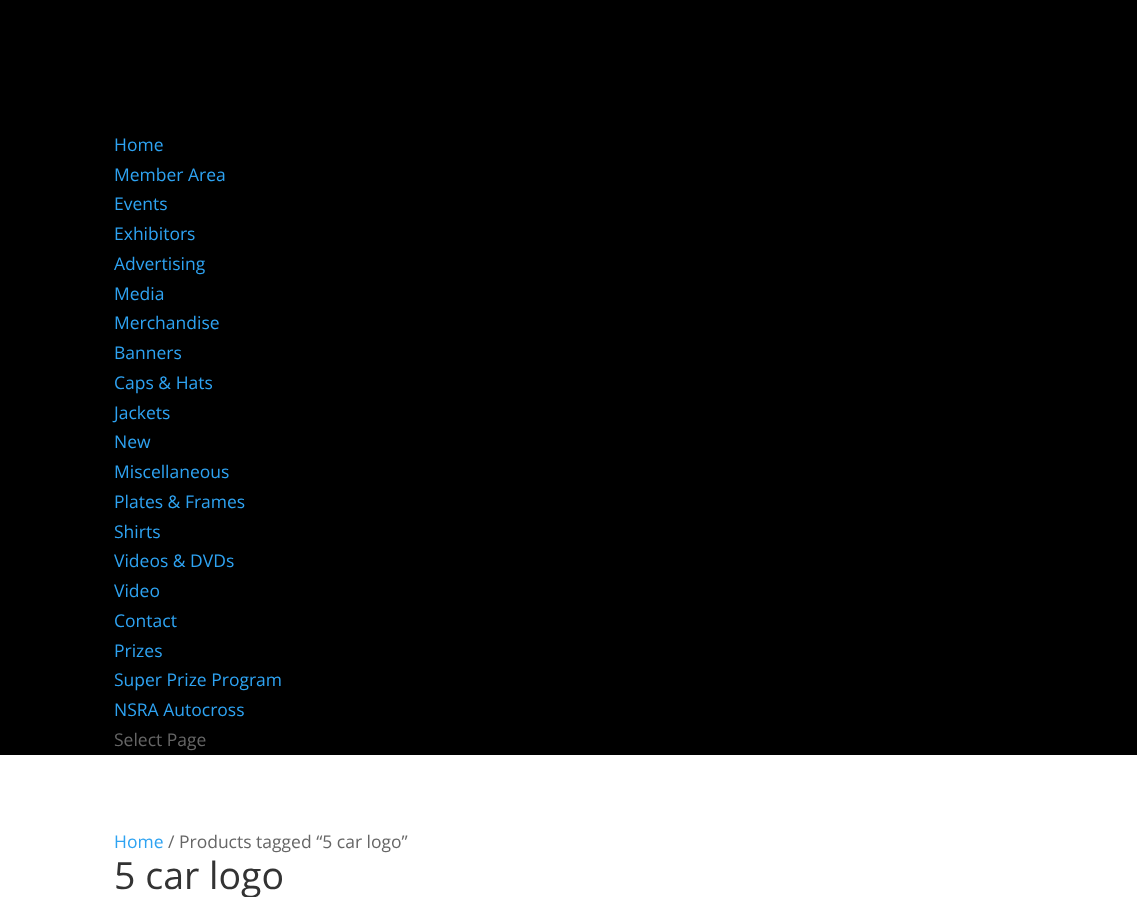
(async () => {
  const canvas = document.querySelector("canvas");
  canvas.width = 1137;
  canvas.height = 897;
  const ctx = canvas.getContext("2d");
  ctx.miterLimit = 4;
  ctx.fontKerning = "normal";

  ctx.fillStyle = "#000000";
  ctx.fillRect(0, 0, 1137, 897);
  ctx.fillStyle = "#ffffff";
  ctx.fillRect(0, 755, 1137, 142);
  ctx.font = "17.5px Open Sans";
  ctx.fillStyle = "#2ea3f2";
  for (const [text, x, y] of [
    ["Home", 114, 151],
    ["Member Area", 114, 181],
    ["Events", 114, 210],
    ["Exhibitors", 114, 240],
    ["Advertising", 114, 270],
    ["Media", 114, 300],
    ["Merchandise", 114, 329],
    ["Banners", 114, 359],
    ["Caps & Hats", 114, 389],
    ["Jackets", 114, 419],
    ["New", 114, 448],
    ["Miscellaneous", 114, 478],
    ["Plates & Frames", 114, 508],
    ["Shirts", 114, 538],
    ["Videos & DVDs", 114, 567],
    ["Video", 114, 597],
    ["Contact", 114, 627],
    ["Prizes", 114, 657],
    ["Super Prize Program", 114, 686],
    ["NSRA Autocross", 114, 716],
  ]) {
    ctx.fillText(text, x, y);
  }
  ctx.fillStyle = "#666666";
  ctx.fillText("Select Page", 114, 746);
  ctx.fillStyle = "#2ea3f2";
  ctx.fillText("Home", 114, 848);
  ctx.fillStyle = "#666666";
  ctx.fillText("/ Products tagged “5 car logo”", 168, 848);
  ctx.font = "37.5px Open Sans";
  ctx.fillStyle = "#333333";
  ctx.fillText("5 car logo", 114, 889);
})();
